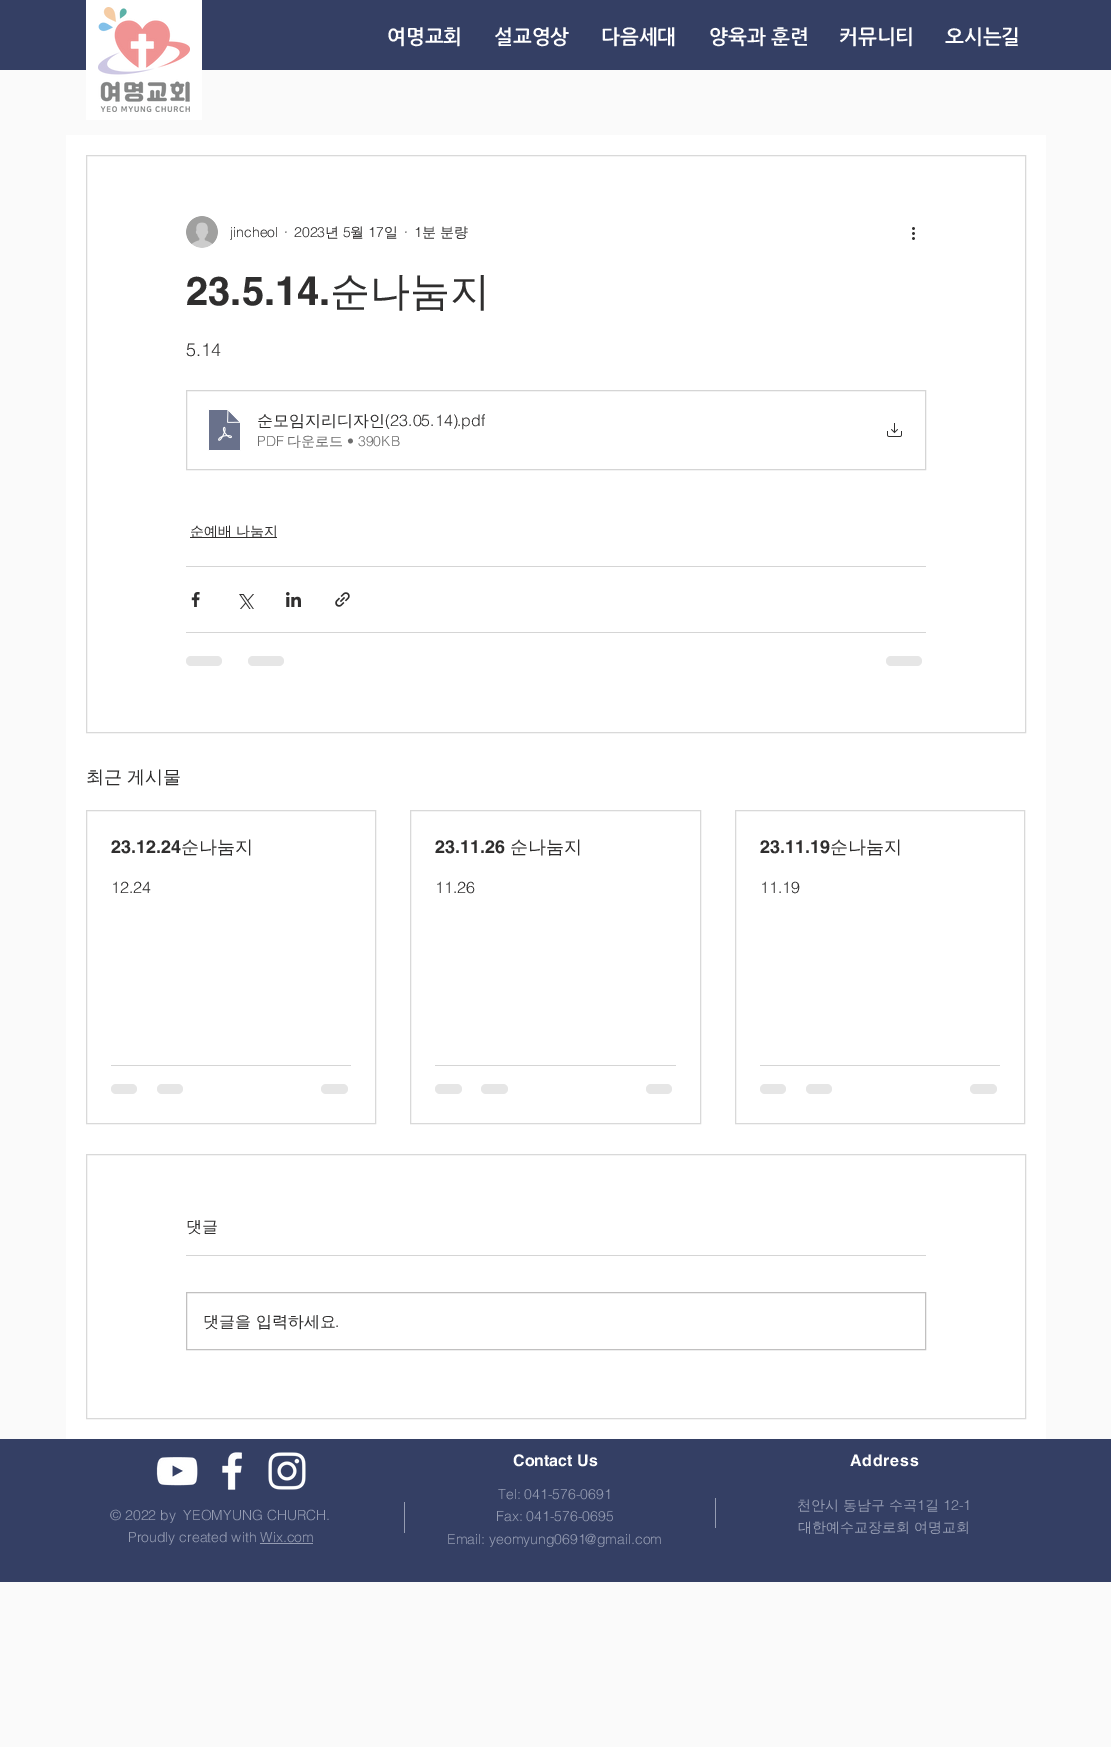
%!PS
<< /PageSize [1111 1747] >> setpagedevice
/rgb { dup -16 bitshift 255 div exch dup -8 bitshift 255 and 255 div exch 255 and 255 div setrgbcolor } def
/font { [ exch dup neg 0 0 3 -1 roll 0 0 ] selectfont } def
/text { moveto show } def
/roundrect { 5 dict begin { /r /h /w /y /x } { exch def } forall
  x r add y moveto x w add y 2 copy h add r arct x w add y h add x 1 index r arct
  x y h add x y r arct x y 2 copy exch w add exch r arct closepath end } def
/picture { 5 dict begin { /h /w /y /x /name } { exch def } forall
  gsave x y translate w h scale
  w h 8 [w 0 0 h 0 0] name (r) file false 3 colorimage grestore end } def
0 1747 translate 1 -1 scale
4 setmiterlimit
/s1 { /NanumGothic-Bold 20 font 16#FFFFFF rgb } def
/s2 { /helvetica-Light 14 font 16#2F2E2E rgb } def
/s3 { /WenQuanYiZenHei-Medium 14 font 16#2F2E2E rgb } def
/s4 { /helvetica-Bold 40 font 16#2F2E2E rgb } def
/s5 { /WenQuanYiZenHei-Medium 40 font 16#2F2E2E rgb } def
/s6 { /helvetica-Light 18 font 16#2F2E2E rgb } def
/s7 { /WenQuanYiZenHei-Medium 16 font 16#2F2E2E rgb } def
/s8 { /helvetica-Light 16 font 16#2F2E2E rgb } def
/s9 { /helvetica-Light 14 font 16#6D6D6D rgb } def
/s10 { /WenQuanYiZenHei-Medium 14 font 16#6D6D6D rgb } def
/s11 { /WenQuanYiZenHei-Medium 18 font 16#2F2E2E rgb } def
/s12 { /helvetica-Bold 18 font 16#2F2E2E rgb } def
/s13 { /helvetica-Bold 16 font 16#FFFFFF rgb } def
/s14 { /helvetica-Light 14 font 16#959CB2 rgb } def
/s15 { /WenQuanYiZenHei-Medium 14 font 16#959CB2 rgb } def
16#FAFAFA rgb
0 0 1111 1747 rectfill
16#343F64 rgb
0 0 1111 70 rectfill
16#FFFFFF rgb
86 0 116 120 rectfill
(pic1.raw) 98 7 92 105 picture
s1
(여명교회) 387 43 text
(설교영상) 494 43 text
(다음세대) 601 43 text
(양육과 훈련) 709 43 text
(커뮤니티) 839 43 text
(오시는길) 945 43 text
66 135 980 1304 rectfill
16#D9D9D9 rgb
86.5 155.5 939 577 rectstroke
(pic2.raw) 186 216 32 32 picture
s2
(jincheol) 230 237 text
(·) 284 237 text
(2023) 294 237 text
s3
(년) 325 237 text
s2
(5) 343 237 text
s3
(월) 350 237 text
s2
(17) 368 237 text
s3
(일) 384 237 text
s2
(·) 404 237 text
(1) 414 237 text
s3
(분 분량) 422 237 text
(pic3.raw) 912 227 3 13 picture
s4
(23.5.14.) 186 305 text
s5
(순나눔지) 330 305 text
s6
(5.14) 186 356 text
16#D5D5D5 rgb
186.5 390.5 739 79 rectstroke
(pic4.raw) 208 409 33 42 picture
s7
(순모임지리디자인) 257 426 text
s8
(\(23.05.14\)) 385 426 text
(.pdf) 457 426 text
s9
(PDF) 257 446 text
s10
(다운로드) 287 446 text
s9
(• 390KB) 347 446 text
(pic5.raw) 887 423 15 14 picture
16#2F2E2E rgb
190 537 87 1 rectfill
s3
(순예배 나눔지) 190 536 text
16#D5D5D5 rgb
186 566 740 1 rectfill
(pic6.raw) 191 592 9 15 picture
(pic7.raw) 239 594 15 15 picture
(pic8.raw) 286 592 15 15 picture
(pic9.raw) 335 592 15 15 picture
186 632 740 1 rectfill
16#E6E6E6 rgb
186 656 36 10 5 roundrect fill
248 656 36 10 5 roundrect fill
886 656 36 10 5 roundrect fill
s11
(최근 게시물) 86 783 text
16#D9D9D9 rgb
86.5 810.5 289 313 rectstroke
s12
(23.12.24) 111 853 text
s11
(순나눔지) 181 853 text
s8
(12.24) 111 893 text
16#D5D5D5 rgb
111 1065 240 1 rectfill
16#E6E6E6 rgb
111 1084 26 10 5 roundrect fill
157 1084 26 10 5 roundrect fill
321 1084 27 10 5 roundrect fill
16#D9D9D9 rgb
410.5 810.5 290 313 rectstroke
s12
(23.11.26) 435 853 text
s11
(순나눔지) 510 853 text
s8
(11.26) 435 893 text
16#D5D5D5 rgb
435 1065 241 1 rectfill
16#E6E6E6 rgb
435 1084 27 10 5 roundrect fill
481 1084 27 10 5 roundrect fill
646 1084 26 10 5 roundrect fill
16#D9D9D9 rgb
735.5 810.5 289 313 rectstroke
s12
(23.11.19) 760 853 text
s11
(순나눔지) 830 853 text
s8
(11.19) 760 893 text
16#D5D5D5 rgb
760 1065 240 1 rectfill
16#E6E6E6 rgb
760 1084 26 10 5 roundrect fill
806 1084 26 10 5 roundrect fill
970 1084 27 10 5 roundrect fill
16#D9D9D9 rgb
86.5 1154.5 939 264 rectstroke
s7
(댓글) 186 1232 text
16#D5D5D5 rgb
186 1255 740 1 rectfill
16#C1C0C0 rgb
186.5 1292.5 739 57 rectstroke
s7
(댓글을 입력하세요) 203 1327 text
s8
(.) 335 1327 text
16#343F64 rgb
0 1439 1111 143 rectfill
(pic10.raw) 156 1457 42 29 picture
(pic11.raw) 222 1452 20 38 picture
(pic12.raw) 268 1452 38 38 picture
s13
(Contact Us) 513 1466 text
850 1466 moveto 0.75 0 (Address) ashow
s14
(© 2022 by  YEOMYUNG CHURCH.) 110 1520 text
(Proudly created with Wix.com) 128 1542 text
260 1543 53 1 rectfill
404 1502 1 31 rectfill
(Tel: 041-576-0691) 498 1499 text
(Fax: 041-576-0695) 496 1521 text
(Email: yeomyung0691@gmail.com) 447 1544 text
715 1498 1 30 rectfill
s15
(천안시 동남구 수곡) 797 1510 text
s14
(1) 917 1510 text
s15
(길) 925 1510 text
s14
(12-1) 943 1510 text
s15
(대한예수교장로회 여명교회) 798 1532 text
showpage
